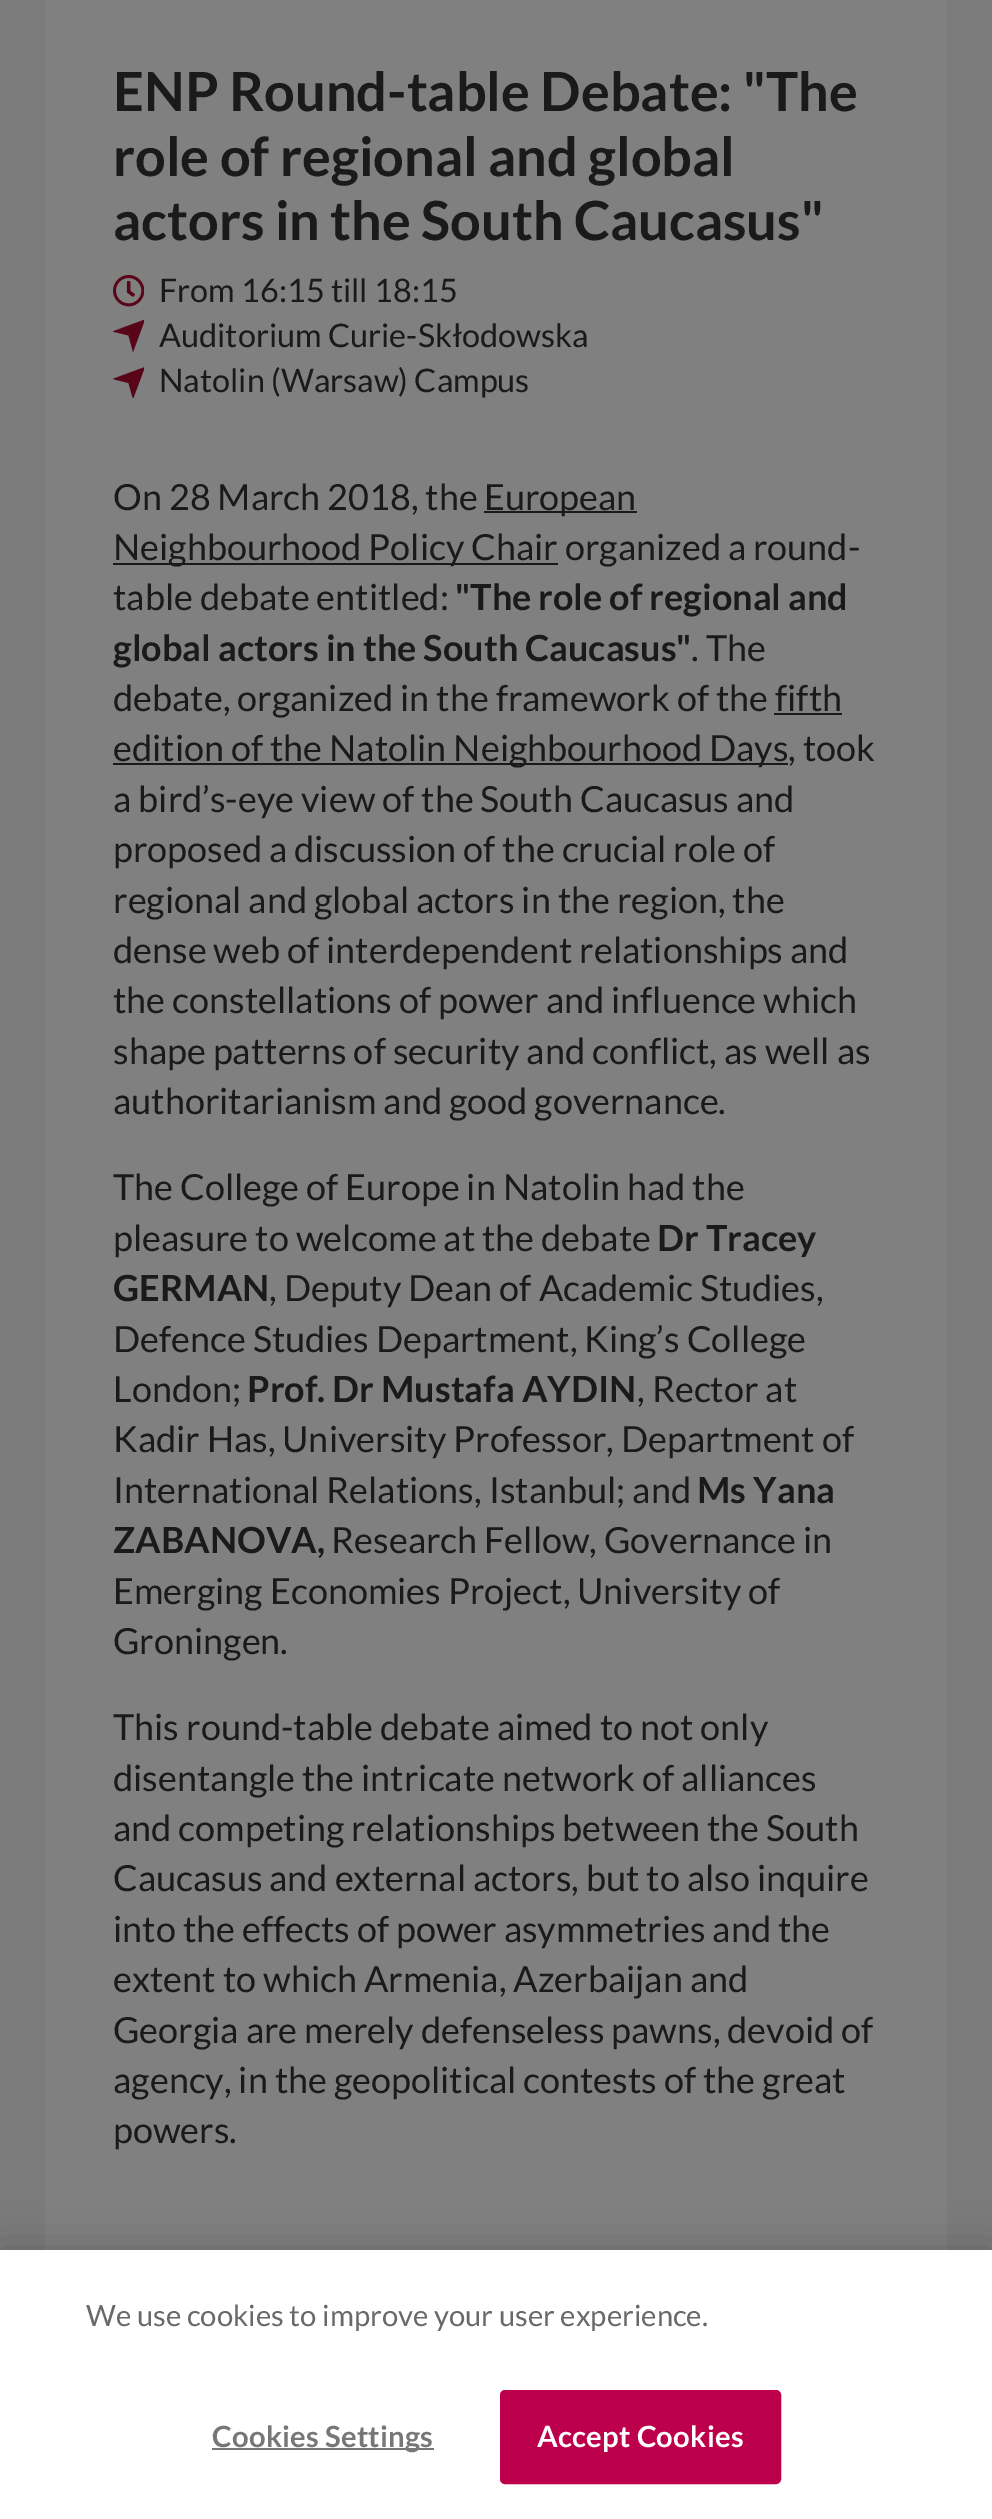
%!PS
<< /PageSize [992 2519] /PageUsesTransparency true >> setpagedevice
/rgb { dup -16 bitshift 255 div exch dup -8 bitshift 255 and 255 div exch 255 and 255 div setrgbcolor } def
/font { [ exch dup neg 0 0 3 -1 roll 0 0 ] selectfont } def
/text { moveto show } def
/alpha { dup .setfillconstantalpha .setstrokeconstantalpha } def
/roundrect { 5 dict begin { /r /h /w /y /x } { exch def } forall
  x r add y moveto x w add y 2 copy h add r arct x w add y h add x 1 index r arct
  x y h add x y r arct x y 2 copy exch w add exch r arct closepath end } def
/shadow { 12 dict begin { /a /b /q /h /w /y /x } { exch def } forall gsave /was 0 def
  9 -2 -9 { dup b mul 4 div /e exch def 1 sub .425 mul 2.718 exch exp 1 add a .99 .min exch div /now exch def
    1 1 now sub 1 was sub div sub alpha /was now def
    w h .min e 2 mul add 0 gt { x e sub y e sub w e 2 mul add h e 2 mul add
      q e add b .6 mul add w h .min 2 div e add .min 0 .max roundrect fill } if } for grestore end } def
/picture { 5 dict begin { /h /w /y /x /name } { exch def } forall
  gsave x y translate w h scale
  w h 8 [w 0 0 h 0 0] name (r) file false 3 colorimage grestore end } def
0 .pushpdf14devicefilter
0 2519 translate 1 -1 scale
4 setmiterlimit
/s1 { /Lato-Bold 54 font 16#1A1A1A rgb } def
/s2 { /Lato-Regular 32.4 font 16#1A1A1A rgb } def
/s3 { /Lato-Regular 36 font 16#1A1A1A rgb } def
/s4 { /Lato-Bold 36 font 16#1A1A1A rgb } def
/s5 { /Lato-Regular 29.25 font 16#696969 rgb } def
16#7B7B7B rgb
0 0 992 2519 rectfill
16#808080 rgb
45 0 902 2250 rectfill
s1
(ENP Round-table Debate: "The) 113 111 text
(role of regional and global) 113 176 text
(actors in the South Caucasus") 113 240 text
(pic1.raw) 113 275 31 32 picture
s2
(From 16:15 till 18:15) 159 302 text
gsave
113 320 31 33 rectclip
16#590519 rgb
112.5 331.5 moveto 145 319.5 lineto 133 352 lineto 128.5 335.5 lineto closepath fill
grestore
(Auditorium Curie-Skłodowska) 159 347 text
gsave
113 367 31 31 rectclip
16#590519 rgb
112.5 379 moveto 145 367 lineto 133 399 lineto 128.5 383 lineto closepath fill
grestore
(Natolin \(Warsaw\) Campus) 159 392 text
s3
(On 28 March 2018, the) 113 510 text
484 511 153 2 rectfill
(European) 484 510 text
113 563 445 2 rectfill
(Neighbourhood Policy Chair organized a round-) 113 560 text
(table debate entitled:) 113 610 text
s4
("The role of regional and) 455 610 text
(global actors in the South Caucasus") 113 661 text
s3
(. The) 691 661 text
(debate, organized in the framework of the fifth) 113 711 text
113 763 675 2 rectfill
(edition of the Natolin Neighbourhood Days, took) 113 761 text
774 713 68 2 rectfill
(a bird’s-eye view of the South Caucasus and) 113 812 text
(proposed a discussion of the crucial role of) 113 862 text
(regional and global actors in the region, the) 113 913 text
(dense web of interdependent relationships and) 113 963 text
(the constellations of power and influence which) 113 1013 text
(shape patterns of security and conflict, as well as) 113 1064 text
(authoritarianism and good governance.) 113 1114 text
(The College of Europe in Natolin had the) 113 1200 text
(pleasure to welcome at the debate) 113 1251 text
s4
(Dr Tracey) 657 1251 text
(GERMAN) 113 1301 text
s3
(, Deputy Dean of Academic Studies,) 269 1301 text
(Defence Studies Department, King’s College) 113 1352 text
(London;) 113 1402 text
s4
(Prof. Dr Mustafa AYDIN) 247 1402 text
s3
(, Rector at) 637 1402 text
(Kadir Has, University Professor, Department of) 113 1452 text
(International Relations, Istanbul; and) 113 1503 text
s4
(Ms Yana) 697 1503 text
(ZABANOVA,) 113 1553 text
s3
(Research Fellow, Governance in) 331 1553 text
(Emerging Economies Project, University of) 113 1604 text
(Groningen.) 113 1654 text
(This round-table debate aimed to not only) 113 1740 text
(disentangle the intricate network of alliances) 113 1791 text
(and competing relationships between the South) 113 1841 text
(Caucasus and external actors, but to also inquire) 113 1891 text
(into the effects of power asymmetries and the) 113 1942 text
(extent to which Armenia, Azerbaijan and) 113 1992 text
(Georgia are merely defenseless pawns, devoid of) 113 2043 text
(agency, in the geopolitical contests of the great) 113 2093 text
(powers.) 113 2143 text
16#000000 rgb
0 2250 992 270 0 20 0.2 shadow
16#FFFFFF rgb
0 2250 992 269 rectfill
s5
(We use cookies to improve your user experience.) 86 2326 text
16#777777 rgb
212 2448 222 2 rectfill
/Lato-Bold 29.25 font
212 2447 moveto 0.25 0 (Cookies Settings) ashow
16#BD004B rgb
501 2391 279 92 4 roundrect gsave fill grestore
2 setlinewidth
stroke
16#FFFFFF rgb
537 2447 moveto 0.25 0 (Accept Cookies) ashow
.poppdf14devicefilter showpage
